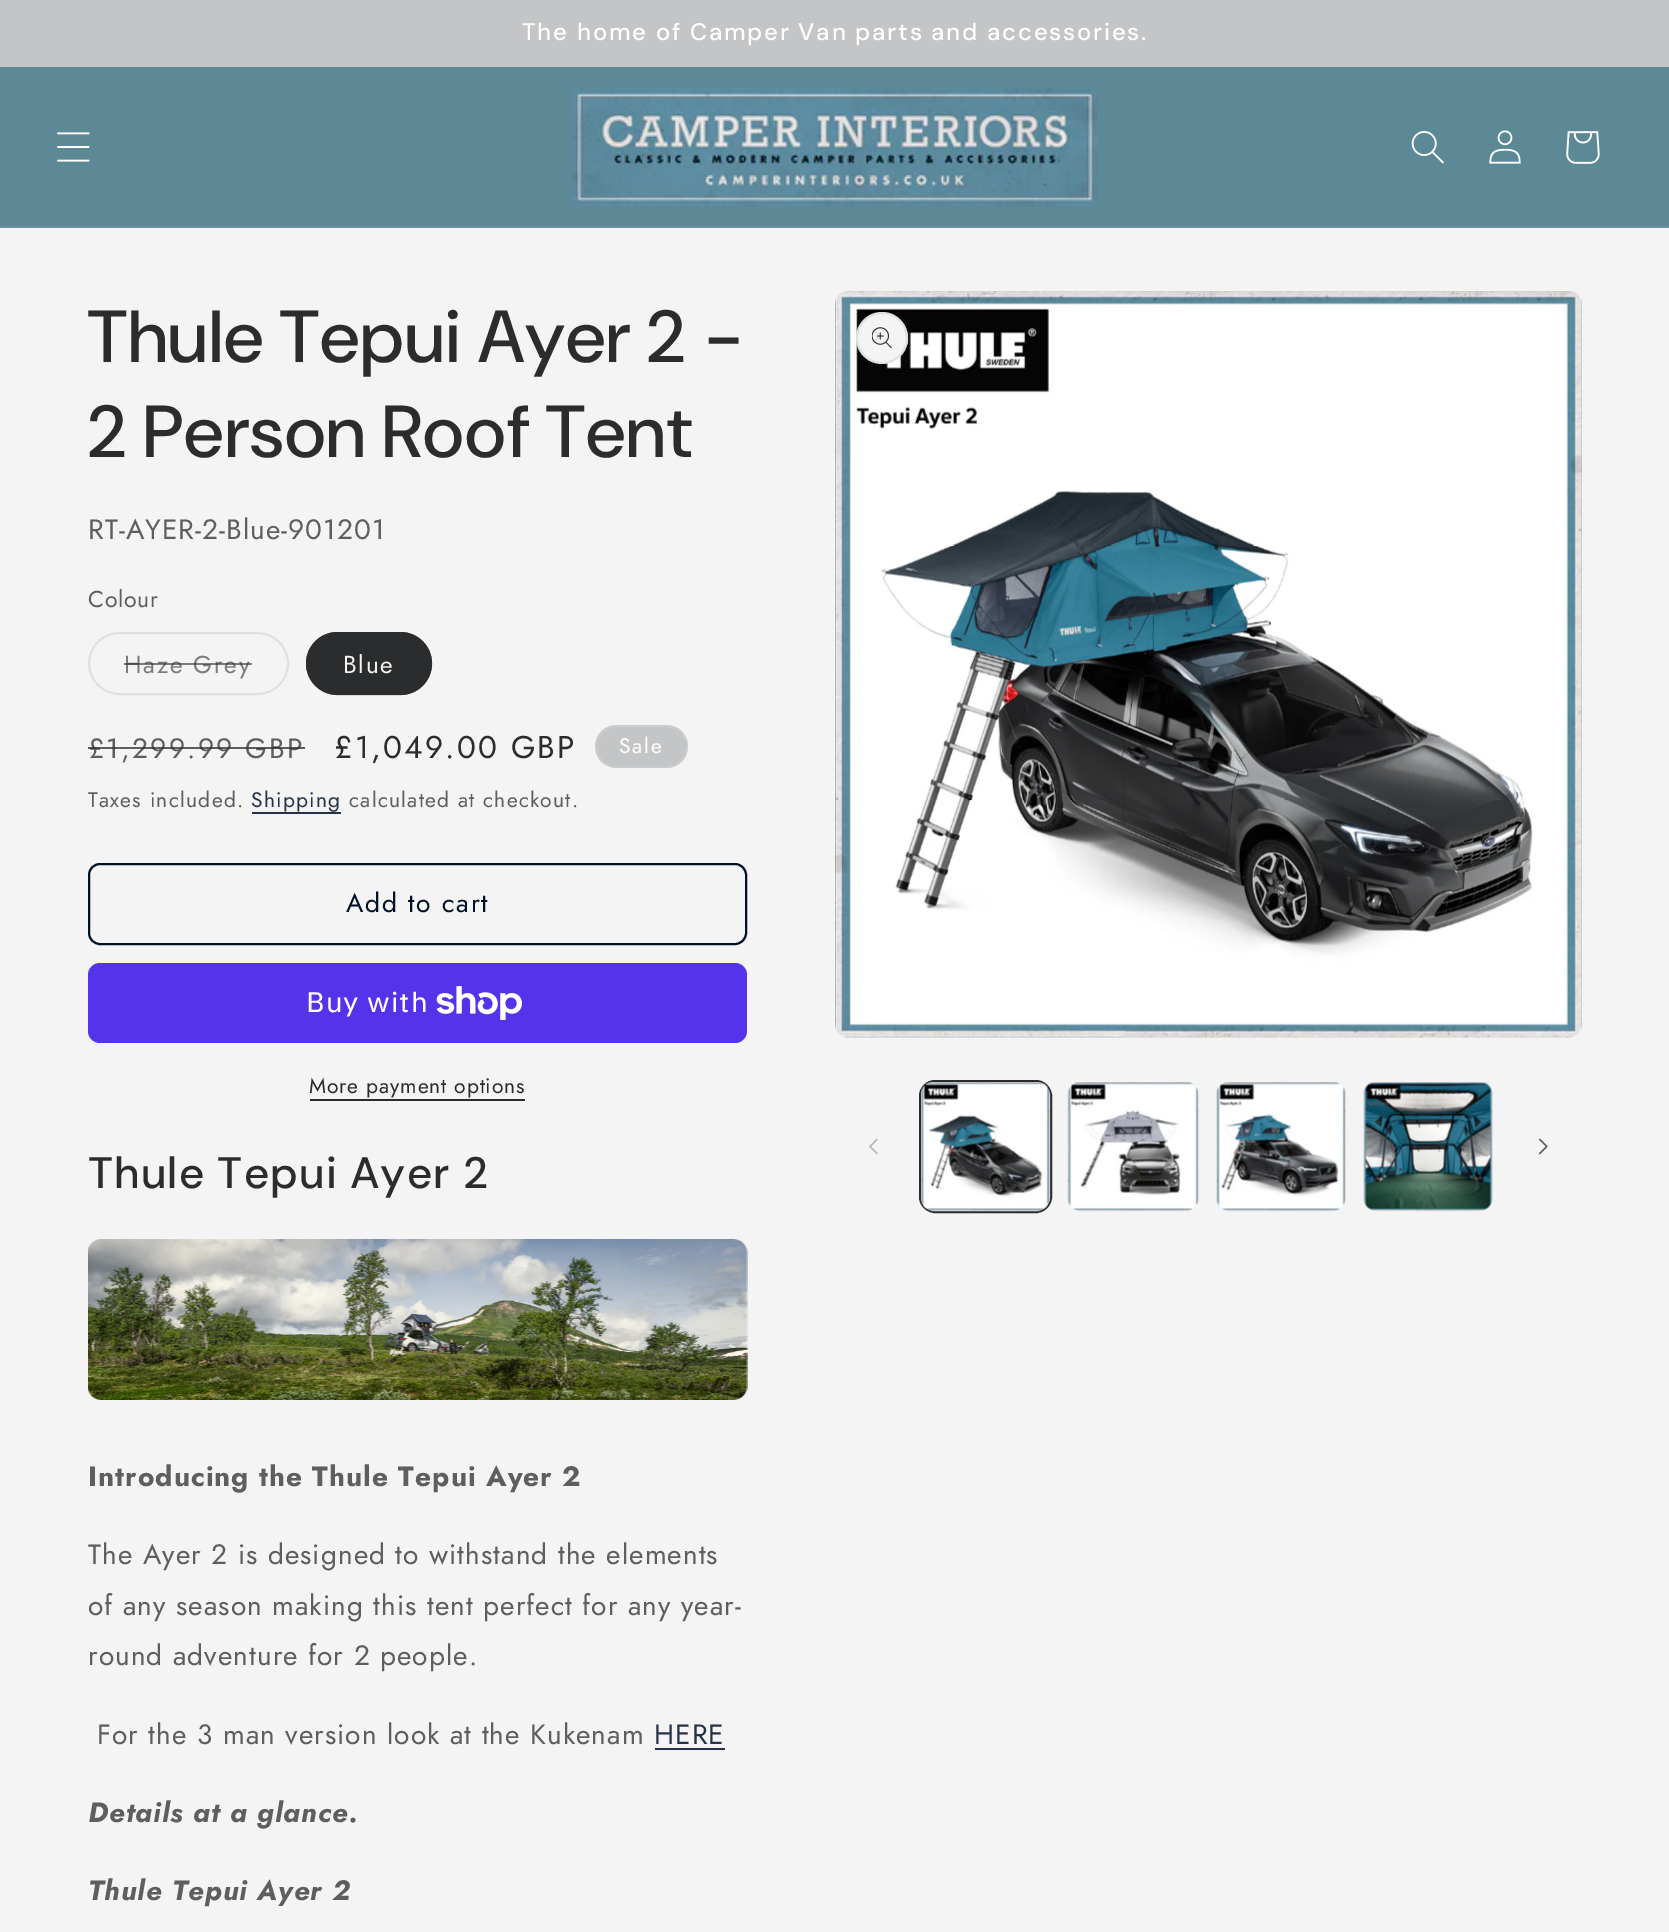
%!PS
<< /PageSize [1669 1932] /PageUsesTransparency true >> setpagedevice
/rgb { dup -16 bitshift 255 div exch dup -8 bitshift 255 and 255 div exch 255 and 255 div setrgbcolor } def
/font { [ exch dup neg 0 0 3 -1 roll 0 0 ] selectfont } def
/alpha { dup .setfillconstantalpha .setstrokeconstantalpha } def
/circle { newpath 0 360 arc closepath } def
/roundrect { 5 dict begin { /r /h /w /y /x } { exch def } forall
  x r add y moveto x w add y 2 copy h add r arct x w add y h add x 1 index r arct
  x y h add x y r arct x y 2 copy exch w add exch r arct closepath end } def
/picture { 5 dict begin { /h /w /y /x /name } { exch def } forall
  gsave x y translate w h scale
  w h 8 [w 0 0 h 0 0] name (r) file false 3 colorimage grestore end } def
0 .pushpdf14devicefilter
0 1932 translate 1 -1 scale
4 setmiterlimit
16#F4F4F4 rgb
0 0 1669 1932 rectfill
16#C4C5C6 rgb
0 0 1669 67 rectfill
/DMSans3-Medium 23.9 font
16#FFFFFF rgb
522 40 moveto 1.75 0 (The home of Camper Van parts and accessories.) ashow
16#5D8896 rgb
0 67 1669 159 rectfill
16#6A929E rgb
0 226 1669 2 rectfill
(pic1.raw) 57 132 33 30 picture
(pic2.raw) 572 87 526 120 picture
(pic3.raw) 1411 131 33 33 picture
(pic4.raw) 1489 130 32 34 picture
(pic5.raw) 1566 131 34 33 picture
/DMSans-Medium 73.5 font
16#2B2C2D rgb
88 362 moveto 1.1 0 (Thule Tepui Ayer 2 -) ashow
88 457 moveto 1.1 0 (2 Person Roof Tent) ashow
/Jost-Regular 28 font
16#5D5E5F rgb
88 539 moveto 1.05 0 (RT-AYER-2-Blue-901201) ashow
/Jost-Regular 23 font
88 607 moveto 0.75 0 (Colour) ashow
16#E0E0E0 rgb
2 setlinewidth
89 633 199 61 30.5 roundrect stroke
/Jost-Regular 24.5 font
16#7B7C7D rgb
124 673 moveto 1.75 0 (Haze Grey) ashow
0.6 alpha
16#2B2C2D rgb
124 663 128 2 rectfill
1 alpha
306 632 126 63 31.5 roundrect fill
0.55 alpha
307 633 124 61 30.5 roundrect stroke
1 alpha
16#F4F4F4 rgb
343 673 moveto 1.75 0 (Blue) ashow
/Jost-Regular 28 font
16#5D5E5F rgb
88 758 moveto 2.25 0 (£1,299.99 GBP) ashow
0.75 alpha
16#2B2C2D rgb
88 747 217 2 rectfill
/Jost-Regular 31.5 font
1 alpha
334 758 moveto 2.25 0 (£1,049.00 GBP) ashow
16#C4C5C6 rgb
595 725 93 43 21.5 roundrect fill
0.1 alpha
16#FFFFFF rgb
596 726 91 41 20.5 roundrect stroke
/Jost-Regular 21 font
1 alpha
619 753 moveto 1.75 0 (Sale) ashow
16#5D5E5F rgb
88 807 moveto 1.25 0 (Taxes included.) ashow
16#253347 rgb
251 807 moveto 1.25 0 (Shipping) ashow
252 812 89 2 rectfill
16#5D5E5F rgb
349 807 moveto 1.25 0 (calculated at checkout.) ashow
16#001128 rgb
89 864 657 80 11 roundrect stroke
/Jost-Regular 26.25 font
346 912 moveto 1.75 0 (Add to cart) ashow
16#5433EB rgb
88 963 659 80 12 roundrect fill
/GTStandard-Regular 28 font
16#FFFFFF rgb
306 1012 moveto 1.05 0 (Buy with) ashow
(pic6.raw) 436 986 86 34 picture
/Jost-Regular 21 font
16#2B2C2D rgb
309 1093 moveto 0.9 0 (More payment options) ashow
310 1099 215 2 rectfill
/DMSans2-Medium 44 font
88 1188 moveto 1.1 0 (Thule Tepui Ayer 2) ashow
(pic7.raw) 88 1239 660 161 picture
/Jost-Bold 28 font
16#5D5E5F rgb
88 1486 moveto 1.05 0 (Introducing the Thule Tepui Ayer 2) ashow
/Jost-Regular 28 font
88 1564 moveto 1.05 0 (The Ayer 2 is designed to withstand the elements) ashow
88 1615 moveto 1.05 0 (of any season making this tent perfect for any year-) ashow
88 1665 moveto 1.05 0 (round adventure for 2 people.) ashow
97 1744 moveto 1.05 0 (For the 3 man version look at the Kukenam) ashow
16#253347 rgb
654 1744 moveto 1.05 0 (HERE) ashow
655 1748 70 2 rectfill
/Jost-BoldItalic 28 font
16#5D5E5F rgb
88 1822 moveto 1.05 0 (Details at a glance.) ashow
88 1900 moveto 1.05 0 (Thule Tepui Ayer 2) ashow
(pic8.raw) 835 291 747 747 picture
16#F4F4F4 rgb
882 338 26 circle fill
0.1 alpha
16#2B2C2D rgb
882 338 25 circle stroke
1 alpha
(pic9.raw) 872 327 20 22 picture
(pic10.raw) 869 1138 9 17 picture
920 1081 131 131 15 roundrect stroke
(pic11.raw) 921 1082 130 130 picture
(pic12.raw) 1067 1082 132 130 picture
(pic13.raw) 1216 1082 130 130 picture
(pic14.raw) 1363 1082 130 130 picture
(pic15.raw) 1539 1138 9 17 picture
.poppdf14devicefilter showpage
